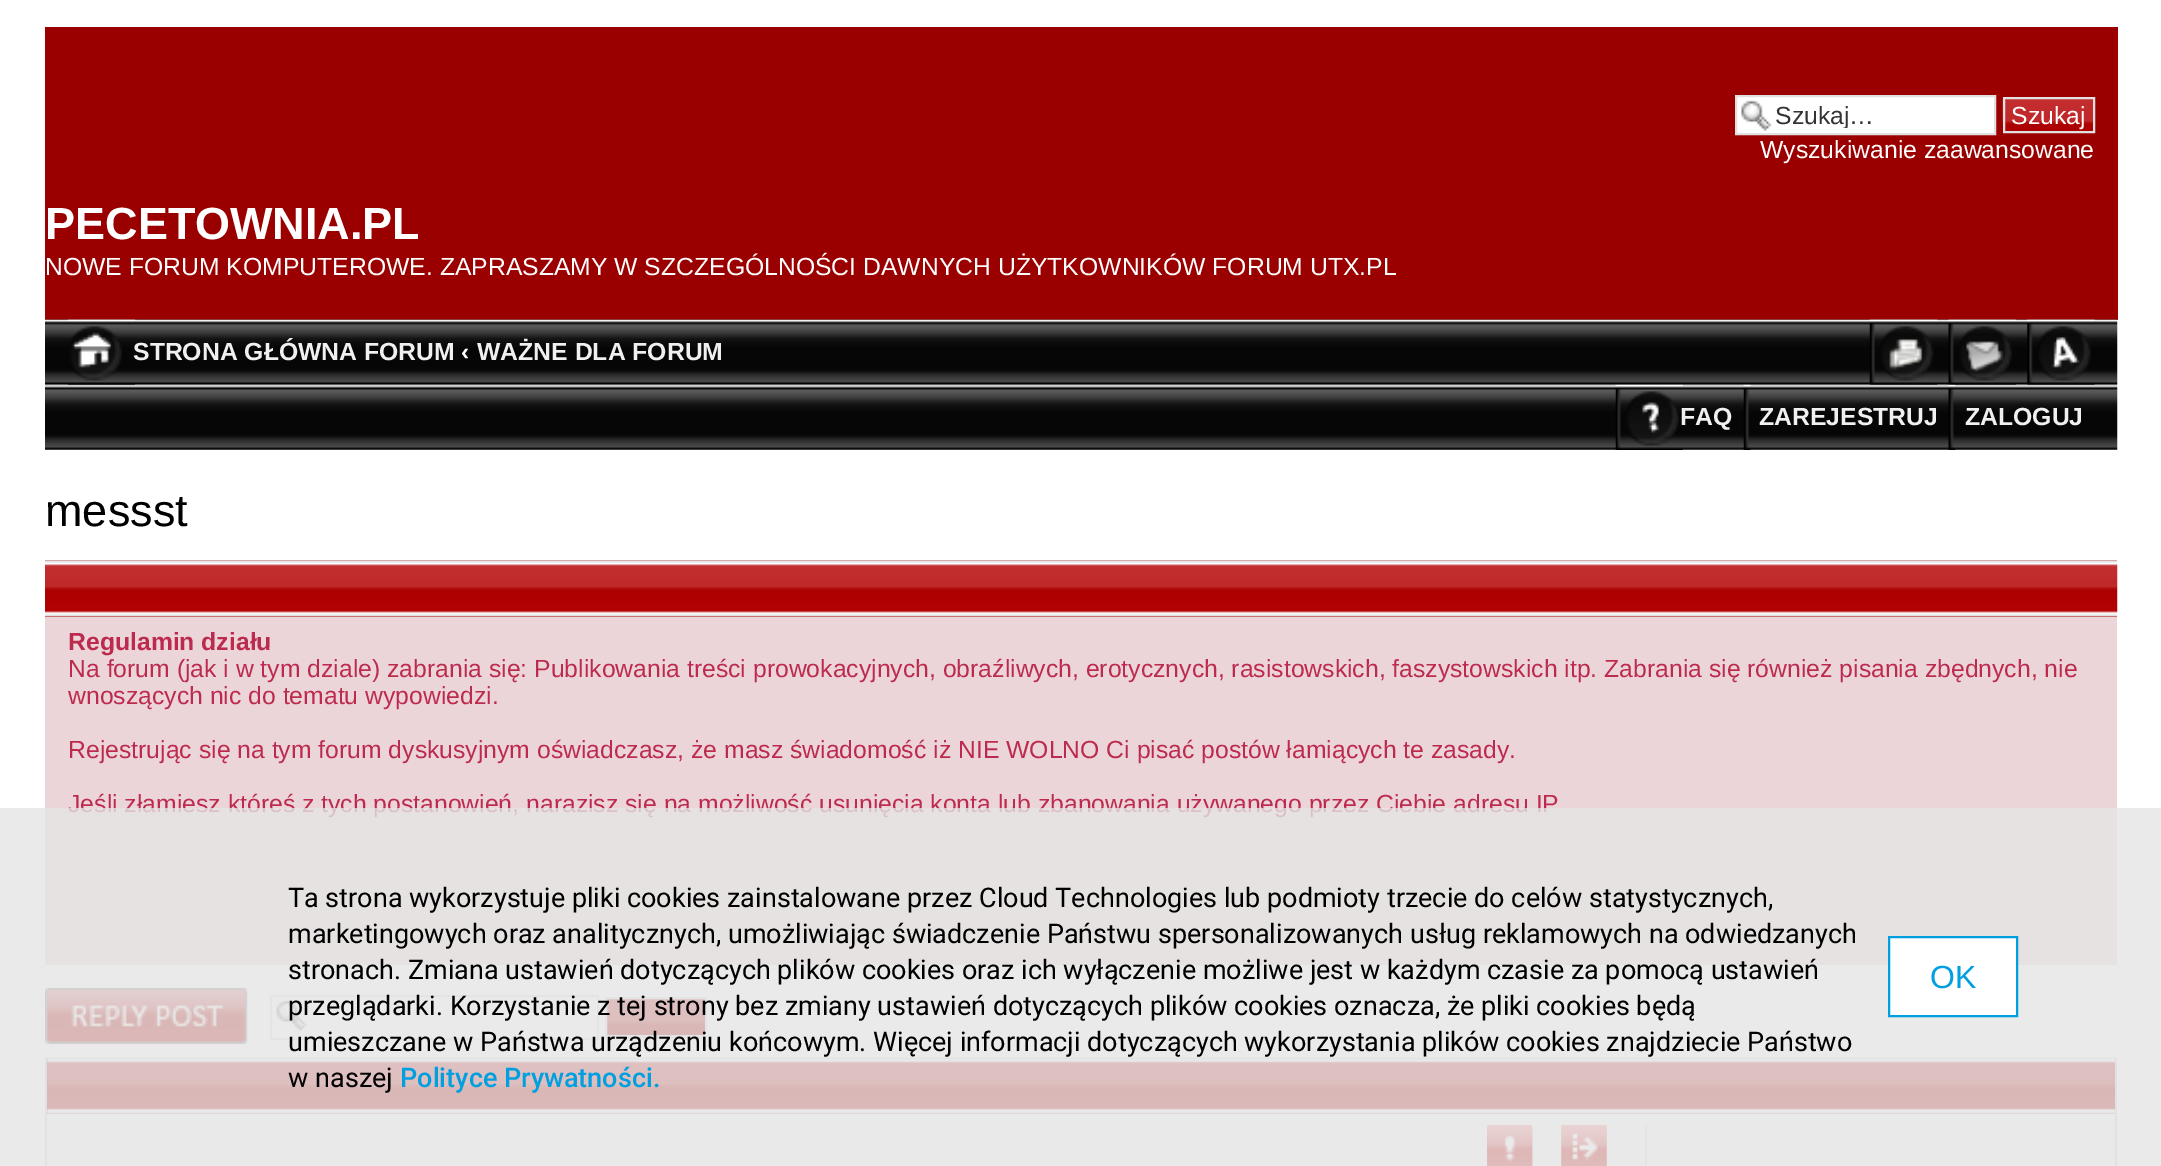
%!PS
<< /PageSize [2161 1166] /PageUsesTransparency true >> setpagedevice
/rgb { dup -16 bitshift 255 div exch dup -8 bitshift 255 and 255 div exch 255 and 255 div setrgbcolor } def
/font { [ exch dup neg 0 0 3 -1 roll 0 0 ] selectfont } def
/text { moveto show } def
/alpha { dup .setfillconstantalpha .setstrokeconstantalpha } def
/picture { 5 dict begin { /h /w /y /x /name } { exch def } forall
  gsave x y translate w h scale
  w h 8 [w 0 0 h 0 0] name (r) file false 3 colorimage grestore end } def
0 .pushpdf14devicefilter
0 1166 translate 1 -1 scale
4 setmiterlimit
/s1 { /LiberationSans-Regular 24.75 font 16#333333 rgb } def
/s2 { /LiberationSans-Regular 24.75 font 16#FFFFFF rgb } def
/s3 { /LiberationSans-Bold 45 font 16#FFFFFF rgb } def
/s4 { /LiberationSans-Bold 24.75 font 16#F0F0F0 rgb } def
/s5 { /LiberationSans-Bold 24.75 font 16#FFFFFF rgb } def
/s6 { /LiberationSans-Regular 45 font 16#000000 rgb } def
/s7 { /LiberationSans-Bold 24.75 font 16#BC2A4D rgb } def
/s8 { /LiberationSans-Regular 24.75 font 16#BC2A4D rgb } def
/s9 { /Roboto-Regular 27 font 16#000000 rgb } def
/s10 { /Roboto-Medium 27 font 16#009FDF rgb } def
/s11 { /LiberationSans-Regular 32 font 16#009FDF rgb } def
16#FFFFFF rgb
0 0 2161 1166 rectfill
16#9A0000 rgb
45 27 2073 293 rectfill
16#FFFFFF rgb
1737 97 257 36 rectfill
(pic1.raw) 1741 100 31 31 picture
16#E1E1E1 rgb
2 setlinewidth
1736 96 259 38 rectstroke
gsave
1775 101 214 27 rectclip
s1
(Szukaj…) 1775 124 text
grestore
(pic2.raw) 2002 99 91 34 picture
2004 98 90 34 rectstroke
s2
(Szukaj) 2011 124 text
(Wyszukiwanie zaawansowane) 1760 158 text
s3
(PECETOWNIA.PL) 45 239 text
s2
(NOWE FORUM KOMPUTEROWE. ZAPRASZAMY W SZCZEGÓLNOŚCI DAWNYCH UŻYTKOWNIKÓW FORUM UTX.PL) 45 275 text
(pic3.raw) 45 319 2073 131 picture
(pic4.raw) 67 319 68 66 picture
s4
(STRONA GŁÓWNA FORUM) 133 360 text
s5
(‹) 461 360 text
s4
(WAŻNE DLA FORUM) 477 360 text
(pic5.raw) 1869 319 69 66 picture
(pic6.raw) 1948 319 68 66 picture
(pic7.raw) 2027 319 68 66 picture
(pic8.raw) 1615 384 68 66 picture
(FAQ) 1680 425 text
(pic9.raw) 1743 384 8 66 picture
(ZAREJESTRUJ) 1759 425 text
(pic10.raw) 1948 384 8 66 picture
(ZALOGUJ) 1965 425 text
s6
(messst) 45 526 text
16#ECD5D8 rgb
45 617 2072 348 rectfill
16#AC0000 rgb
45 560 2072 57 rectfill
(pic11.raw) 45 560 2073 57 picture
s7
(Regulamin działu) 68 650 text
s8
(Na forum \(jak i w tym dziale\) zabrania się: Publikowania treści prowokacyjnych, obraźliwych, erotycznych, rasistowskich, faszystowskich itp. Zabrania się również pisania zbędnych, nie) 68 677 text
(wnoszących nic do tematu wypowiedzi.) 68 704 text
(Rejestrując się na tym forum dyskusyjnym oświadczasz, że masz świadomość iż NIE WOLNO Ci pisać postów łamiących te zasady.) 68 758 text
(Jeśli złamiesz któreś z tych postanowień, narazisz się na możliwość usunięcia konta lub zbanowania używanego przez Ciebie adresu IP) 68 812 text
(pic12.raw) 45 987 203 57 picture
(pic13.raw) 276 1000 31 31 picture
16#E1E1E1 rgb
271 996 327 43 rectstroke
(pic14.raw) 605 999 102 39 picture
606 998 100 38 rectstroke
16#FAFAFA rgb
47 1114 2068 52 rectfill
16#D1D1D1 rgb
2115 1058 2 108 rectfill
45 1058 2 108 rectfill
16#AC0000 rgb
47 1058 2068 56 rectfill
(pic15.raw) 47 1057 2068 57 picture
(pic16.raw) 1487 1125 46 41 picture
(pic17.raw) 1487 1125 46 41 picture
(pic18.raw) 1561 1125 46 41 picture
(pic19.raw) 1561 1125 46 41 picture
16#E1E1E1 rgb
1645 1125 2 41 rectfill
0.8 alpha
16#E5E5E5 rgb
0 808 2161 358 rectfill
1 alpha
s9
(Ta strona wykorzystuje pliki cookies zainstalowane przez Cloud Technologies lub podmioty trzecie do celów statystycznych,) 288 907 text
(marketingowych oraz analitycznych, umożliwiając świadczenie Państwu spersonalizowanych usług reklamowych na odwiedzanych) 288 943 text
(stronach. Zmiana ustawień dotyczących plików cookies oraz ich wyłączenie możliwe jest w każdym czasie za pomocą ustawień) 288 979 text
(przeglądarki. Korzystanie z tej strony bez zmiany ustawień dotyczących plików cookies oznacza, że pliki cookies będą) 288 1015 text
(umieszczane w Państwa urządzeniu końcowym. Więcej informacji dotyczących wykorzystania plików cookies znajdziecie Państwo) 288 1051 text
(w naszej) 288 1087 text
s10
(Polityce Prywatności.) 400 1087 text
16#FFFFFF rgb
1889 937 moveto 2017 937 lineto 2017 1016 lineto 1889 1016 lineto closepath gsave fill grestore
16#009FDF rgb
stroke
s11
(OK) 1930 988 text
.poppdf14devicefilter showpage
